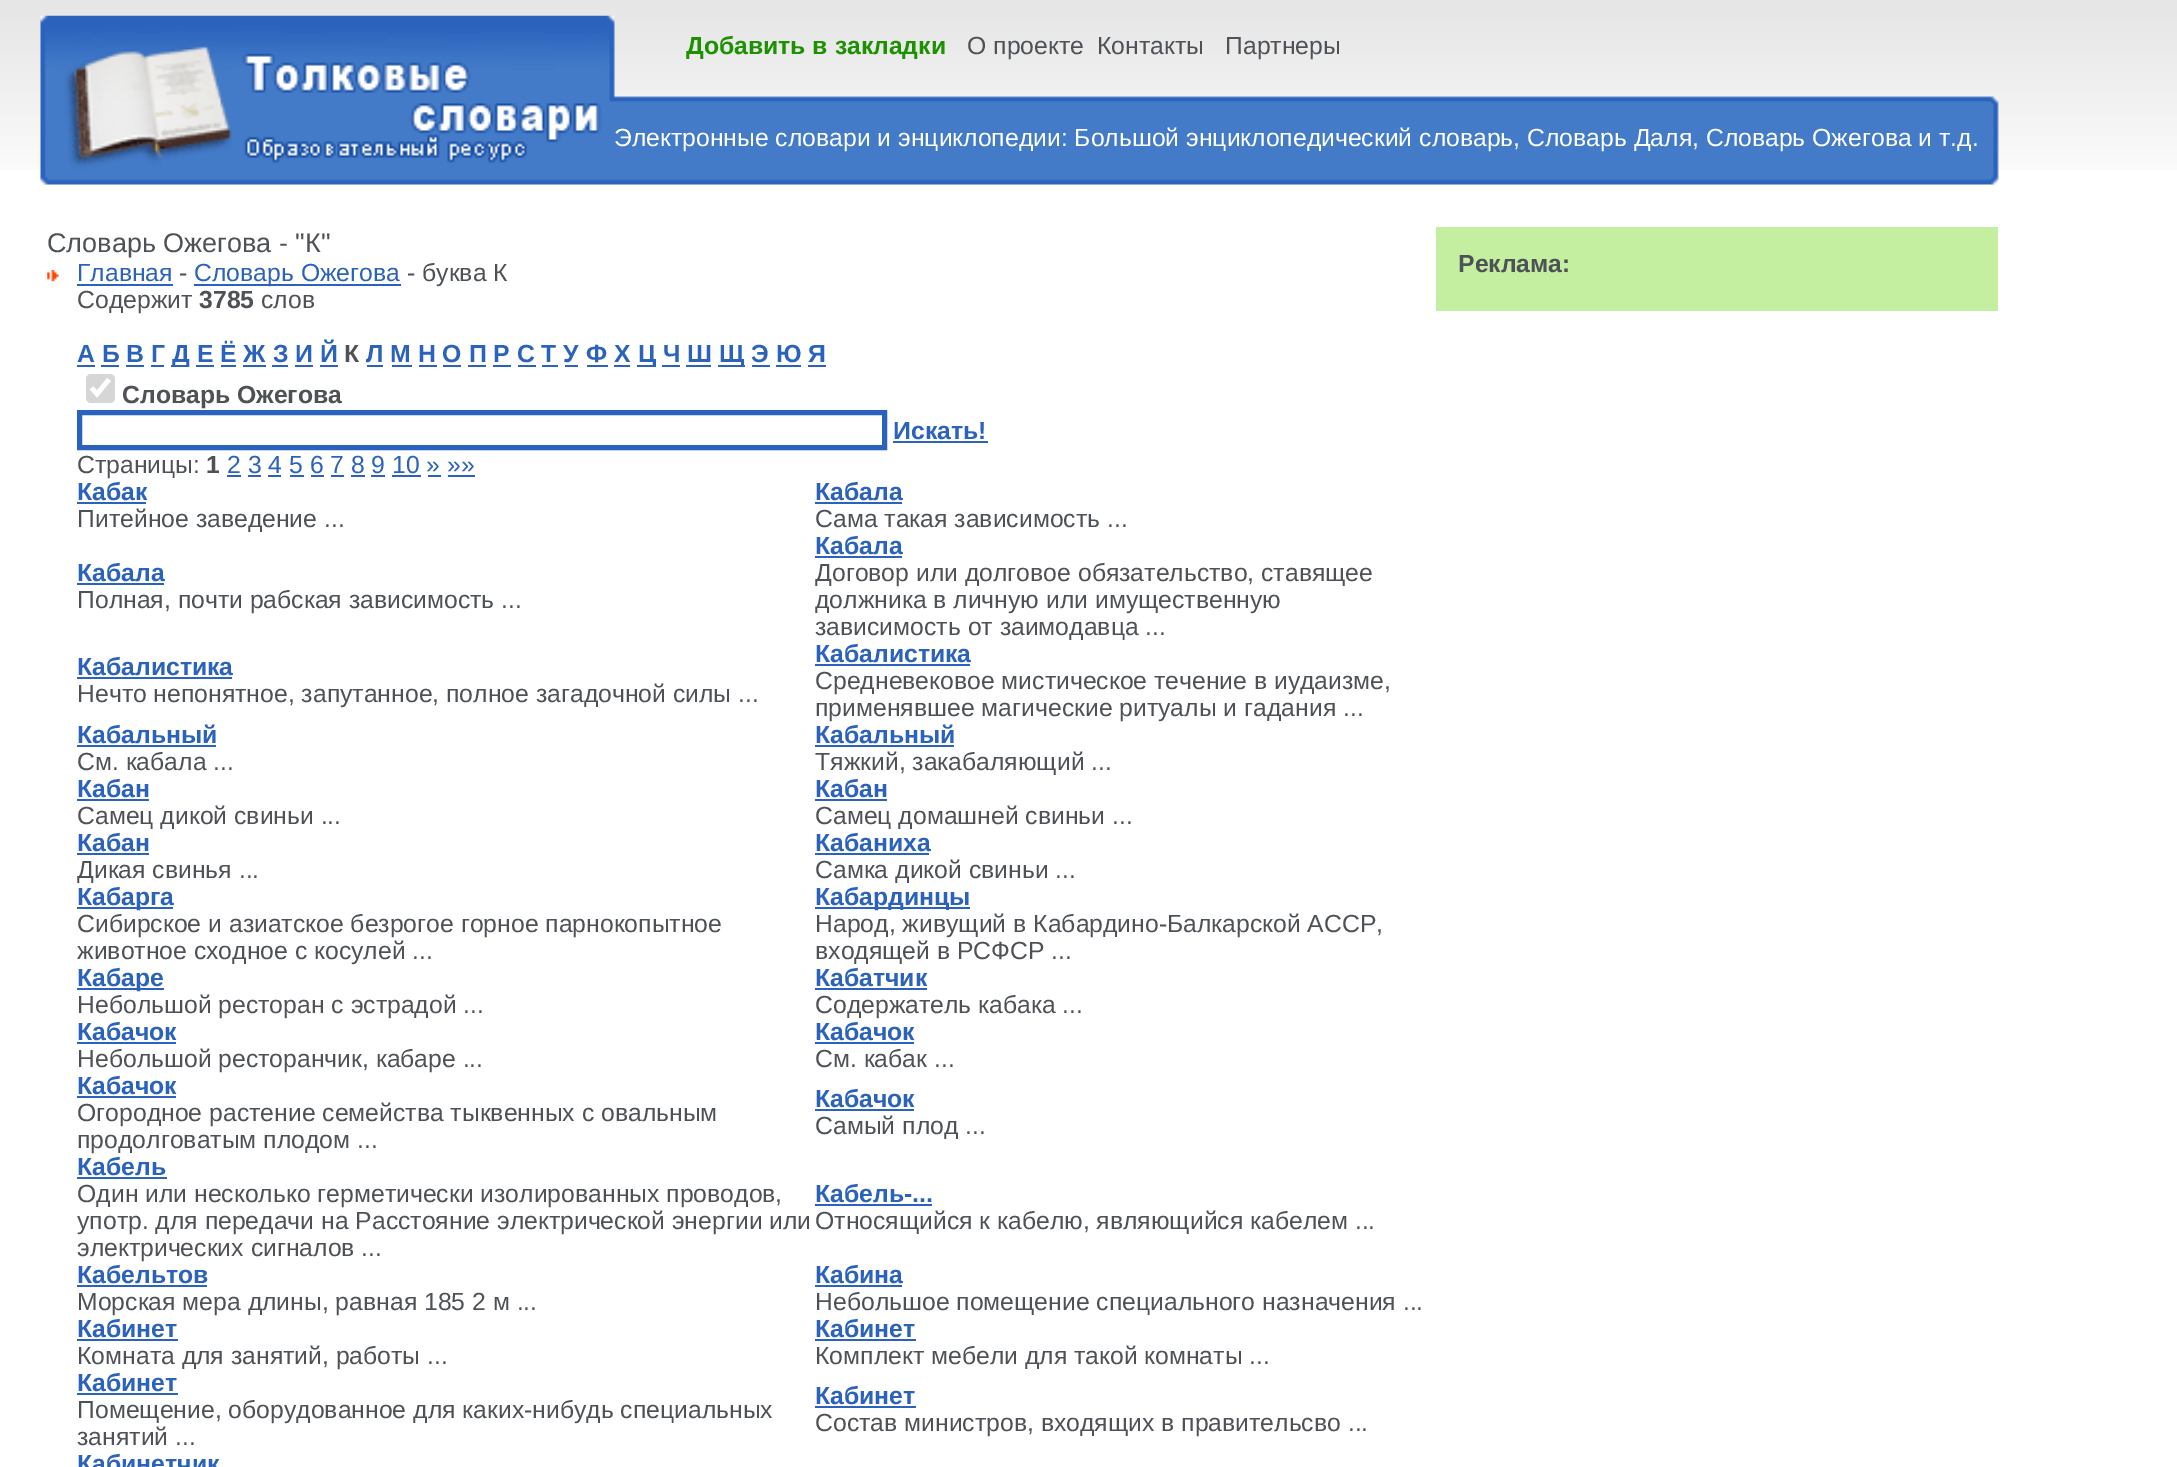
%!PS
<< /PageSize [2177 1467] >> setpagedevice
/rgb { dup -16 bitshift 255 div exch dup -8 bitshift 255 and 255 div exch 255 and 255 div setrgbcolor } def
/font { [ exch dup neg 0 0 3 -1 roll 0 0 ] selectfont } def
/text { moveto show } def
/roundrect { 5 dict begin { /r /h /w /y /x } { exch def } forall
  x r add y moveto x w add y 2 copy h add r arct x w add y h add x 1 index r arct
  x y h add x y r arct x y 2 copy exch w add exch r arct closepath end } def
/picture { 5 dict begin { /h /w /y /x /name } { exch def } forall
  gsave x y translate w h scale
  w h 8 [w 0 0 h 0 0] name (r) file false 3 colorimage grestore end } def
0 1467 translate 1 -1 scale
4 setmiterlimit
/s1 { /LiberationSans-Bold 24.75 font 16#1D9101 rgb } def
/s2 { /LiberationSans-Regular 24.75 font 16#4E5256 rgb } def
/s3 { /LiberationSans-Regular 24.75 font 16#FFFFFF rgb } def
/s4 { /LiberationSans-Regular 27 font 16#4E5256 rgb } def
/s5 { /LiberationSans-Regular 24.75 font 16#2A62BC rgb } def
/s6 { /LiberationSans-Bold 24.75 font 16#4E5256 rgb } def
/s7 { /LiberationSans-Bold 24.75 font 16#2A62BC rgb } def
16#FFFFFF rgb
0 0 2177 1467 rectfill
(pic1.raw) 0 0 2177 170 picture
(pic2.raw) 40 15 1959 170 picture
s1
(Добавить в закладки) 686 54 text
s2
(О проекте) 967 54 text
(Контакты) 1097 54 text
(Партнеры) 1225 54 text
s3
(Электронные словари и энциклопедии: Большой энциклопедический словарь, Словарь Даля, Словарь Ожегова и т.д.) 614 146 text
s4
(Словарь Ожегова - "К") 47 252 text
(pic3.raw) 47 270 12 12 picture
s5
(Главная) 77 281 text
77 284 96 2 rectfill
s2
(-) 179 281 text
16#2A62BC rgb
194 284 207 2 rectfill
(Словарь Ожегова) 194 281 text
s2
(- буква К) 407 281 text
(Содержит) 77 308 text
s6
(3785) 199 308 text
s2
(слов) 261 308 text
s7
(А Б В Г) 77 362 text
77 365 18 2 rectfill
171 365 18 2 rectfill
(Д Е Ё Ж З И Й) 172 362 text
s6
(К) 344 362 text
s7
(Л М Н О П Р С Т У Ф Х) 366 362 text
367 365 16 2 rectfill
637 365 18 2 rectfill
(Ц Ч Ш) 638 362 text
718 365 27 2 rectfill
(Щ Э Ю Я) 719 362 text
101 365 18 2 rectfill
126 365 18 2 rectfill
151 365 13 2 rectfill
196 365 18 2 rectfill
221 365 15 2 rectfill
243 365 23 2 rectfill
272 365 16 2 rectfill
295 365 18 2 rectfill
320 365 18 2 rectfill
392 365 20 2 rectfill
419 365 18 2 rectfill
443 365 18 2 rectfill
468 365 18 2 rectfill
493 365 18 2 rectfill
518 365 18 2 rectfill
542 365 16 2 rectfill
565 365 13 2 rectfill
587 365 21 2 rectfill
614 365 16 2 rectfill
662 365 18 2 rectfill
686 365 25 2 rectfill
752 365 18 2 rectfill
776 365 25 2 rectfill
808 365 18 2 rectfill
16#D6D6D6 rgb
86 374 29 29 5 roundrect fill
16#FFFFFF rgb
4.7 setlinewidth
91.5 388 moveto 97 394 lineto 109 379.5 lineto stroke
s6
(Словарь Ожегова) 122 403 text
16#2A62BC rgb
5 setlinewidth
79.5 412.5 805 35 rectstroke
(Искать!) 893 439 text
893 441 95 2 rectfill
s2
(Страницы:) 77 473 text
s6
(1) 206 473 text
s5
(2 3 4 5 6 7 8 9 10 » »») 227 473 text
227 475 14 2 rectfill
248 475 13 2 rectfill
268 475 13 2 rectfill
290 475 14 2 rectfill
311 475 13 2 rectfill
331 475 13 2 rectfill
351 475 14 2 rectfill
371 475 14 2 rectfill
392 475 29 2 rectfill
428 475 13 2 rectfill
448 475 27 2 rectfill
s7
(Кабак) 77 500 text
77 502 69 2 rectfill
s2
(Питейное заведение ...) 77 527 text
s7
(Кабала) 815 500 text
815 502 87 2 rectfill
s2
(Сама такая зависимость ...) 815 527 text
s7
(Кабала) 77 581 text
77 583 87 2 rectfill
s2
(Полная, почти рабская зависимость ...) 77 608 text
s7
(Кабала) 815 554 text
815 556 87 2 rectfill
s2
(Договор или долговое обязательство, ставящее) 815 581 text
(должника в личную или имущественную) 815 608 text
(зависимость от заимодавца ...) 815 635 text
s7
(Кабалистика) 77 675 text
77 677 155 2 rectfill
s2
(Нечто непонятное, запутанное, полное загадочной силы ...) 77 702 text
s7
(Кабалистика) 815 662 text
815 664 155 2 rectfill
s2
(Средневековое мистическое течение в иудаизме,) 815 689 text
(применявшее магические ритуалы и гадания ...) 815 716 text
s7
(Кабальный) 77 743 text
77 745 139 2 rectfill
s2
(См. кабала ...) 77 770 text
s7
(Кабальный) 815 743 text
815 745 139 2 rectfill
s2
(Тяжкий, закабаляющий ...) 815 770 text
s7
(Кабан) 77 797 text
77 799 72 2 rectfill
s2
(Самец дикой свиньи ...) 77 824 text
s7
(Кабан) 815 797 text
815 799 72 2 rectfill
s2
(Самец домашней свиньи ...) 815 824 text
s7
(Кабан) 77 851 text
77 853 72 2 rectfill
s2
(Дикая свинья ...) 77 878 text
s7
(Кабаниха) 815 851 text
815 853 114 2 rectfill
s2
(Самка дикой свиньи ...) 815 878 text
16#2A62BC rgb
77 907 96 2 rectfill
s7
(Кабарга) 77 905 text
s2
(Сибирское и азиатское безрогое горное парнокопытное) 77 932 text
(животное сходное с косулей ...) 77 959 text
16#2A62BC rgb
815 907 155 2 rectfill
s7
(Кабардинцы) 815 905 text
s2
(Народ, живущий в Кабардино-Балкарской АССР,) 815 932 text
(входящей в РСФСР ...) 815 959 text
16#2A62BC rgb
77 988 87 2 rectfill
s7
(Кабаре) 77 986 text
s2
(Небольшой ресторан с эстрадой ...) 77 1013 text
s7
(Кабатчик) 815 986 text
815 988 112 2 rectfill
s2
(Содержатель кабака ...) 815 1013 text
s7
(Кабачок) 77 1040 text
77 1042 99 2 rectfill
s2
(Небольшой ресторанчик, кабаре ...) 77 1067 text
s7
(Кабачок) 815 1040 text
815 1042 99 2 rectfill
s2
(См. кабак ...) 815 1067 text
s7
(Кабачок) 77 1094 text
77 1096 99 2 rectfill
s2
(Огородное растение семейства тыквенных с овальным) 77 1121 text
(продолговатым плодом ...) 77 1148 text
s7
(Кабачок) 815 1107 text
815 1109 99 2 rectfill
s2
(Самый плод ...) 815 1134 text
s7
(Кабель) 77 1175 text
77 1177 90 2 rectfill
s2
(Один или несколько герметически изолированных проводов,) 77 1202 text
(употр. для передачи на Расстояние электрической энергии или) 77 1229 text
(электрических сигналов ...) 77 1256 text
s7
(Кабель-...) 815 1202 text
815 1204 117 2 rectfill
s2
(Относящийся к кабелю, являющийся кабелем ...) 815 1229 text
s7
(Кабельтов) 77 1283 text
77 1285 130 2 rectfill
s2
(Морская мера длины, равная 185 2 м ...) 77 1310 text
s7
(Кабина) 815 1283 text
815 1285 87 2 rectfill
s2
(Небольшое помещение специального назначения ...) 815 1310 text
s7
(Кабинет) 77 1337 text
77 1339 101 2 rectfill
s2
(Комната для занятий, работы ...) 77 1364 text
s7
(Кабинет) 815 1337 text
815 1339 101 2 rectfill
s2
(Комплект мебели для такой комнаты ...) 815 1364 text
s7
(Кабинет) 77 1391 text
77 1393 101 2 rectfill
s2
(Помещение, оборудованное для каких-нибудь специальных) 77 1418 text
(занятий ...) 77 1445 text
s7
(Кабинет) 815 1404 text
815 1406 101 2 rectfill
s2
(Состав министров, входящих в правительсво ...) 815 1431 text
s7
(Кабинетчик) 77 1472 text
16#C4EFA1 rgb
1436 227 562 84 rectfill
s6
(Реклама:) 1458 272 text
showpage
